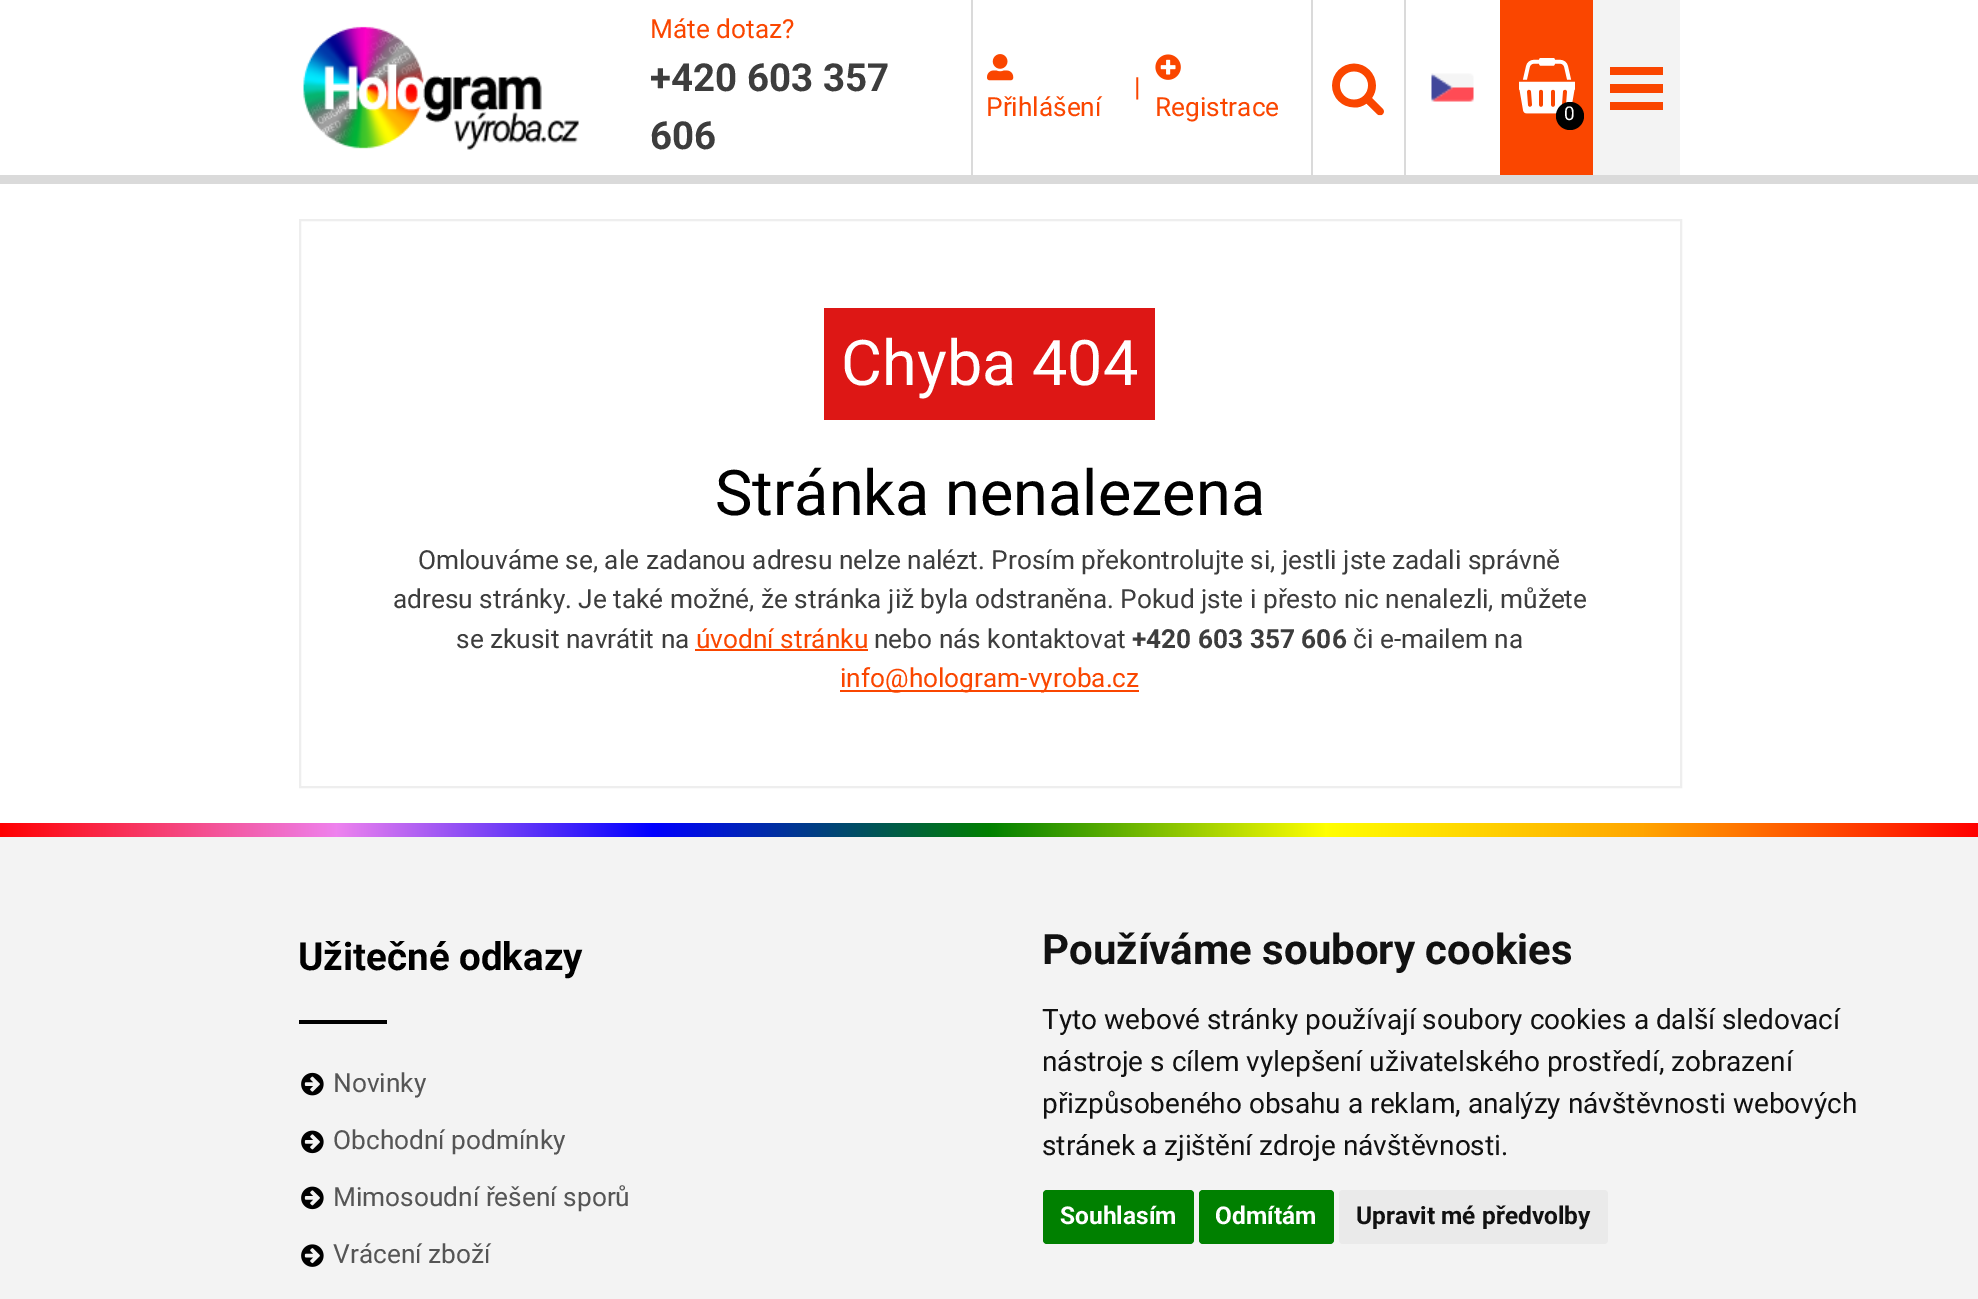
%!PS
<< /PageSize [1978 1299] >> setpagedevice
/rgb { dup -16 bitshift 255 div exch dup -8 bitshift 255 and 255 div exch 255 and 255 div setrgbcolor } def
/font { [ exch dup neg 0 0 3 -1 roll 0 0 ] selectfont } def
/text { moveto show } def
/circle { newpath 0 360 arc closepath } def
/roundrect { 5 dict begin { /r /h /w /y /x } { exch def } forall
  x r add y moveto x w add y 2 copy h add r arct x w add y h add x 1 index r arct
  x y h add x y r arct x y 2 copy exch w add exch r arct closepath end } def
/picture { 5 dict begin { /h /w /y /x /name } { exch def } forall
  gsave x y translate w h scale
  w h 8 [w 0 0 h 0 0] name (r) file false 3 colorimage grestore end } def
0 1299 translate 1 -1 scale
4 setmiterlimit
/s1 { /Roboto-Regular 26.25 font 16#FA4600 rgb } def
/s2 { /Roboto-Bold 38.5 font 16#3D3D3D rgb } def
/s3 { /Roboto-Regular 19 font 16#FFFFFF rgb } def
/s4 { /Roboto-Regular 63 font 16#FFFFFF rgb } def
/s5 { /Roboto-Regular 63 font 16#000000 rgb } def
/s6 { /Roboto-Regular 26.25 font 16#3D3D3D rgb } def
/s7 { /Roboto-Bold 26.25 font 16#3D3D3D rgb } def
/s8 { /Roboto-Bold 38.5 font 16#000000 rgb } def
/s9 { /Roboto-Regular 26.25 font 16#555555 rgb } def
/s10 { /Roboto-Bold 42 font 16#111111 rgb } def
/s11 { /Roboto-Regular 28 font 16#111111 rgb } def
/s12 { /Roboto-Bold 24.5 font 16#FFFFFF rgb } def
/s13 { /Roboto-Bold 24.5 font 16#111111 rgb } def
16#FFFFFF rgb
0 0 1978 1299 rectfill
16#DADADA rgb
0 175 1978 9 rectfill
(pic1.raw) 303 26 277 124 picture
s1
(Máte dotaz?) 650 38 text
s2
(+420 603 357) 650 91 text
(606) 650 149 text
16#DADADA rgb
971 0 2 175 rectfill
s1
(|) 1134 96 text
(pic2.raw) 987 54 27 27 picture
(Přihlášení) 986 116 text
(pic3.raw) 1155 54 26 26 picture
(Registrace) 1155 116 text
16#DADADA rgb
1404 0 2 175 rectfill
1311 0 2 175 rectfill
(pic4.raw) 1332 63 52 53 picture
(pic5.raw) 1431 73 43 29 picture
16#FA4600 rgb
1500 0 93 175 rectfill
(pic6.raw) 1519 58 56 56 picture
16#000000 rgb
1570 116 14 circle fill
s3
(0) 1564 120 text
16#F3F3F3 rgb
1593 0 87 175 rectfill
16#FA4600 rgb
1610 67 53 8 rectfill
1610 84 53 9 rectfill
1610 102 53 8 rectfill
16#EEEEEE rgb
2 setlinewidth
300 220 1381 567 rectstroke
16#DD1715 rgb
824 308 331 112 rectfill
s4
(Chyba 404) 841 385 text
s5
(Stránka nenalezena) 715 515 text
s6
(Omlouváme se, ale zadanou adresu nelze nalézt. Prosím překontrolujte si, jestli jste zadali správně) 418 569 text
(adresu stránky. Je také možné, že stránka již byla odstraněna. Pokud jste i přesto nic nenalezli, můžete) 393 608 text
(se zkusit navrátit na) 456 648 text
s1
(úvodní stránku) 696 648 text
695 649 173 2 rectfill
s6
(nebo nás kontaktovat) 874 648 text
s7
(+420 603 357 606) 1132 648 text
s6
(či e-mailem na) 1353 648 text
16#FA4600 rgb
840 690 299 2 rectfill
(info@hologram-vyroba.cz) 840 687 text
gsave 0 823 moveto 1978 823 lineto 1978 837 lineto 0 837 lineto closepath clip newpath
<< /ShadingType 2 /ColorSpace /DeviceRGB /Coords [0 830 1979 829] /Extend [true true] /Function << /FunctionType 3 /Domain [0 1] /Functions [<< /FunctionType 2 /Domain [0 1] /C0 [1 0 0] /C1 [0.933 0.51 0.933] /N 1 >> << /FunctionType 2 /Domain [0 1] /C0 [0.933 0.51 0.933] /C1 [0 0 1] /N 1 >> << /FunctionType 2 /Domain [0 1] /C0 [0 0 1] /C1 [0 0.502 0] /N 1 >> << /FunctionType 2 /Domain [0 1] /C0 [0 0.502 0] /C1 [1 1 0] /N 1 >> << /FunctionType 2 /Domain [0 1] /C0 [1 1 0] /C1 [1 0.647 0] /N 1 >> << /FunctionType 2 /Domain [0 1] /C0 [1 0.647 0] /C1 [1 0 0] /N 1 >>] /Bounds [0.17 0.33 0.5 0.67 0.83] /Encode [0 1 0 1 0 1 0 1 0 1 0 1] >> >> shfill grestore
16#F3F3F3 rgb
0 837 1978 462 rectfill
s8
(Užitečné odkazy) 298 970 text
299 1020 88 4 rectfill
(pic7.raw) 301 1072 23 24 picture
s9
(Novinky) 333 1092 text
(pic8.raw) 301 1130 23 24 picture
(Obchodní podmínky) 333 1149 text
(pic8.raw) 301 1186 23 24 picture
(Mimosoudní řešení sporů) 333 1206 text
(pic9.raw) 301 1244 23 23 picture
(Vrácení zboží) 333 1263 text
s10
(Používáme soubory cookies) 1042 964 text
s11
(Tyto webové stránky používají soubory cookies a další sledovací) 1042 1029 text
(nástroje s cílem vylepšení uživatelského prostředí, zobrazení) 1042 1071 text
(přizpůsobeného obsahu a reklam, analýzy návštěvnosti webových) 1042 1113 text
(stránek a zjištění zdroje návštěvnosti.) 1042 1155 text
16#008000 rgb
1043 1190 151 54 4 roundrect fill
s12
(Souhlasím) 1060 1224 text
16#008000 rgb
1199 1190 135 54 4 roundrect fill
s12
(Odmítám) 1215 1224 text
16#EAEAEA rgb
1339 1190 269 54 4 roundrect fill
s13
(Upravit mé předvolby) 1356 1224 text
showpage
